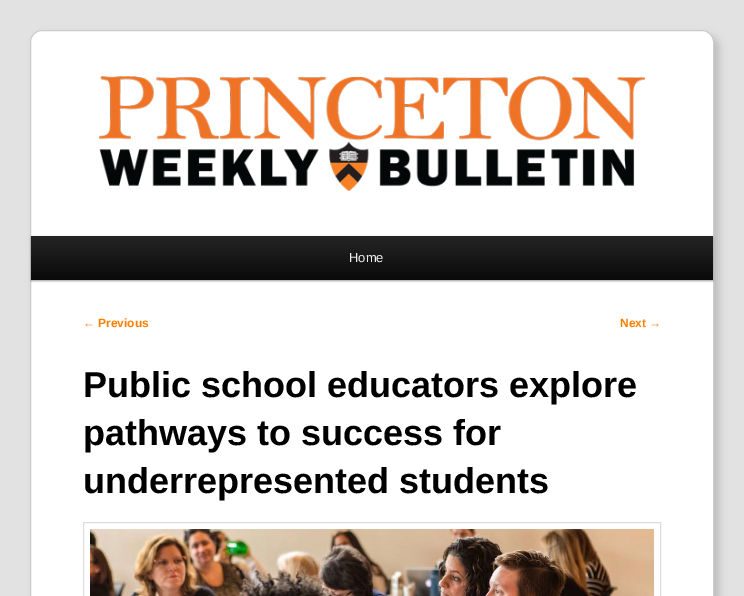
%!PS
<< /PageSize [744 596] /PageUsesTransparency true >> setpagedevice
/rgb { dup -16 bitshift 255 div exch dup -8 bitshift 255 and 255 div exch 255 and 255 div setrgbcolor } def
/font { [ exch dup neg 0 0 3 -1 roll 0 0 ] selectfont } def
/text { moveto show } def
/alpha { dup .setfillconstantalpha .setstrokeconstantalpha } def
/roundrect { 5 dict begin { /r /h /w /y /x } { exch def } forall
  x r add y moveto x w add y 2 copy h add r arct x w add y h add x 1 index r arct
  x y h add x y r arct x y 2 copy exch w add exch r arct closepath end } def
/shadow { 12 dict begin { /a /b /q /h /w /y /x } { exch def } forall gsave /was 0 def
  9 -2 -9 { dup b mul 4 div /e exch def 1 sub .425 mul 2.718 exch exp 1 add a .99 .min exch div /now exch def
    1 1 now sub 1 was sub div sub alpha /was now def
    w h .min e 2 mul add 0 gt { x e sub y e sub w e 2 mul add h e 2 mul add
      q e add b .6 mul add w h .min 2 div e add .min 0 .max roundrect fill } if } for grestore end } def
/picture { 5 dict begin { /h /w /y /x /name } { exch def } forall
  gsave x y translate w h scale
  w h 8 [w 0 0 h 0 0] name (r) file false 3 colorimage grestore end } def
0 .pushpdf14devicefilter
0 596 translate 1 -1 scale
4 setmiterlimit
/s1 { /LiberationSans-Regular 13 font 16#EEEEEE rgb } def
/s2 { /LiberationSans-Regular 12 font 16#FA7F00 rgb } def
/s3 { /LiberationSans-Bold 12 font 16#FA7F00 rgb } def
/s4 { /LiberationSans-Bold 36 font 16#000000 rgb } def
16#E2E2E2 rgb
0 0 744 596 rectfill
16#BBBBBB rgb
35 35 684 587 12 4.5 1 shadow
16#FFFFFF rgb
30.5 30.5 683 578 11.5 roundrect gsave fill grestore
16#CCCCCC rgb
stroke
(pic1.raw) 99 76 546 115 picture
16#000000 rgb
31 237 682 44 0 1 0.4 shadow
gsave 31 236 moveto 713 236 lineto 713 280 lineto 31 280 lineto closepath clip newpath
<< /ShadingType 2 /ColorSpace /DeviceRGB /Coords [372 236 372 280] /Extend [true true] /Function << /FunctionType 2 /Domain [0 1] /C0 [0.145 0.145 0.145] /C1 [0.039 0.039 0.039] /N 1 >> >> shfill grestore
s1
(Home) 349 262 text
s2
(←) 83 327 text
s3
(Previous) 98 327 text
(Next) 620 327 text
s2
(→) 649 327 text
s4
(Public school educators explore) 83 397 text
(pathways to success for) 83 445 text
(underrepresented students) 83 493 text
16#DDDDDD rgb
83.5 522.5 577 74 rectstroke
(pic2.raw) 90 529 564 67 picture
.poppdf14devicefilter showpage
